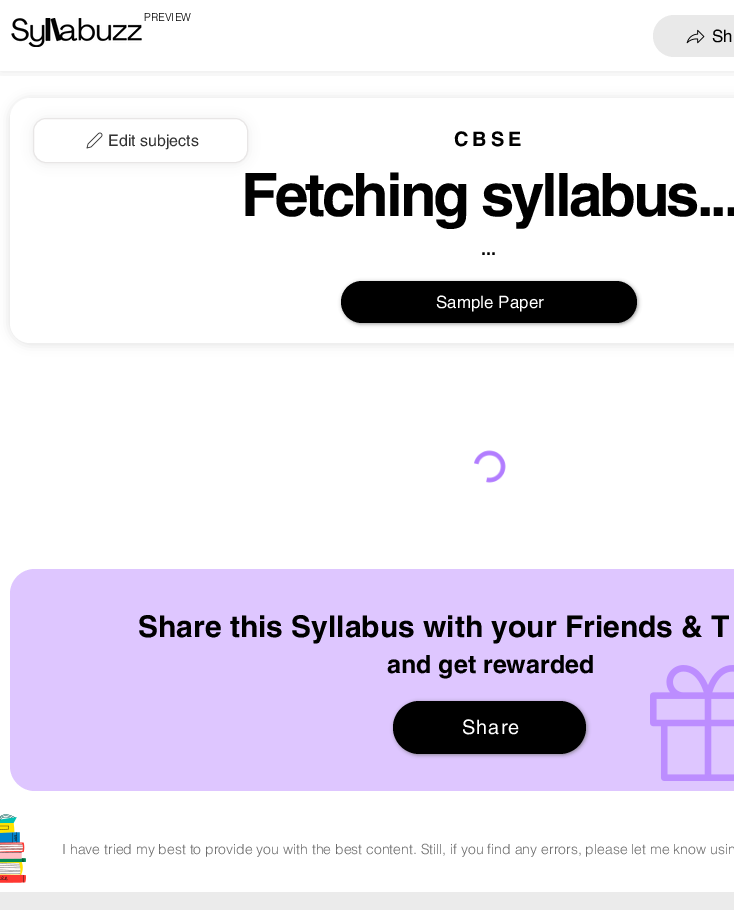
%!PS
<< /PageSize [734 910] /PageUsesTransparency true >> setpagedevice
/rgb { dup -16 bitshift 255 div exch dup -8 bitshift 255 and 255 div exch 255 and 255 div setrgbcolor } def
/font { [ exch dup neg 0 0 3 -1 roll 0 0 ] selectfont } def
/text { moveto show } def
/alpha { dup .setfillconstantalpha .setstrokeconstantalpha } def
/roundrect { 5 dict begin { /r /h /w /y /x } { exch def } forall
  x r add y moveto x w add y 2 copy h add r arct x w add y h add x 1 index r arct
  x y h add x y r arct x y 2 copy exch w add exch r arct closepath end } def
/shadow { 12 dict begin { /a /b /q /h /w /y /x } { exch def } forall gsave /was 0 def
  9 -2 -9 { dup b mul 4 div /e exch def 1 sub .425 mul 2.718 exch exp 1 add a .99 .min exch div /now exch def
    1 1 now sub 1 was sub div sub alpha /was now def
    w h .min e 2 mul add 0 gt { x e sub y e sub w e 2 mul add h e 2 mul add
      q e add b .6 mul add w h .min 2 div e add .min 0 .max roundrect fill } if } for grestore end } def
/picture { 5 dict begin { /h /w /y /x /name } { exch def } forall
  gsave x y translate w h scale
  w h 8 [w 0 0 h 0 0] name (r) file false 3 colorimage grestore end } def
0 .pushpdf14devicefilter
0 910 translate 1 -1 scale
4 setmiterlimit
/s1 { /helvetica-Light 11 font 16#000000 rgb } def
/s2 { /helvetica-Regular 17 font 16#000000 rgb } def
/s3 { /helvetica-Regular 16 font 16#333333 rgb } def
/s4 { /helvetica-Bold 18 font 16#000000 rgb } def
/s5 { /helvetica-Regular 17 font 16#FFFFFF rgb } def
/s6 { /helvetica-Bold 30 font 16#000000 rgb } def
/s7 { /helvetica-Bold 25 font 16#000000 rgb } def
/s8 { /helvetica-Light 14 font 16#6D6D6D rgb } def
16#FFFFFF rgb
0 0 734 910 rectfill
gsave
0 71 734 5 rectclip
16#000000 rgb
0 0 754 71 0 6.5 0.1 shadow
grestore
s1
(PREVIEW) 144 21 text
(pic1.raw) 11 18 131 29 picture
16#E9E9E9 rgb
653 15 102 42 21 roundrect fill
(pic2.raw) 686 29 19 15 picture
s2
(Sh) 712 42 text
10 99 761 245 20 5.5 0.12 shadow
16#FFFFFF rgb
10 98 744 245 20 roundrect fill
16#000000 rgb
33 119 215 45 13 5.5 0.07 shadow
16#FFFFFF rgb
33.5 118.5 214 44 12.5 roundrect gsave fill grestore
16#E8E6E6 rgb
stroke
(pic3.raw) 86 132 17 17 picture
s3
(Edit subjects) 108 146 text
/helvetica-Bold 20 font
16#000000 rgb
454 146 moveto 4 0 (CBSE) ashow
/helvetica-Bold 60 font
241 216 moveto -3 0 (Fetching syllabus...) ashow
s4
(...) 481 255 text
16#6D6D6D rgb
342 282 296 42 21 2 0.7 shadow
16#000000 rgb
341 281 296 42 21 roundrect fill
s5
(Sample Paper) 436 308 text
(pic4.raw) 474 450 32 33 picture
16#DEC6FF rgb
10 569 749 222 25 roundrect fill
s6
(Share this Syllabus with your Friends & T) 138 637 text
s7
(and get rewarded) 387 673 text
16#6D6D6D rgb
394 702 193 53 26.5 2 0.75 shadow
16#000000 rgb
393 701 193 53 26.5 roundrect fill
/helvetica-Regular 20 font
16#FFFFFF rgb
462 734 moveto 1 0 (Share) ashow
(pic5.raw) 650 665 84 116 picture
(pic6.raw) 0 814 26 69 picture
s8
(I have tried my best to provide you with the best content. Still, if you find any errors, please let me know usin) 62 854 text
16#EBEBEB rgb
0 892 734 18 rectfill
.poppdf14devicefilter showpage
